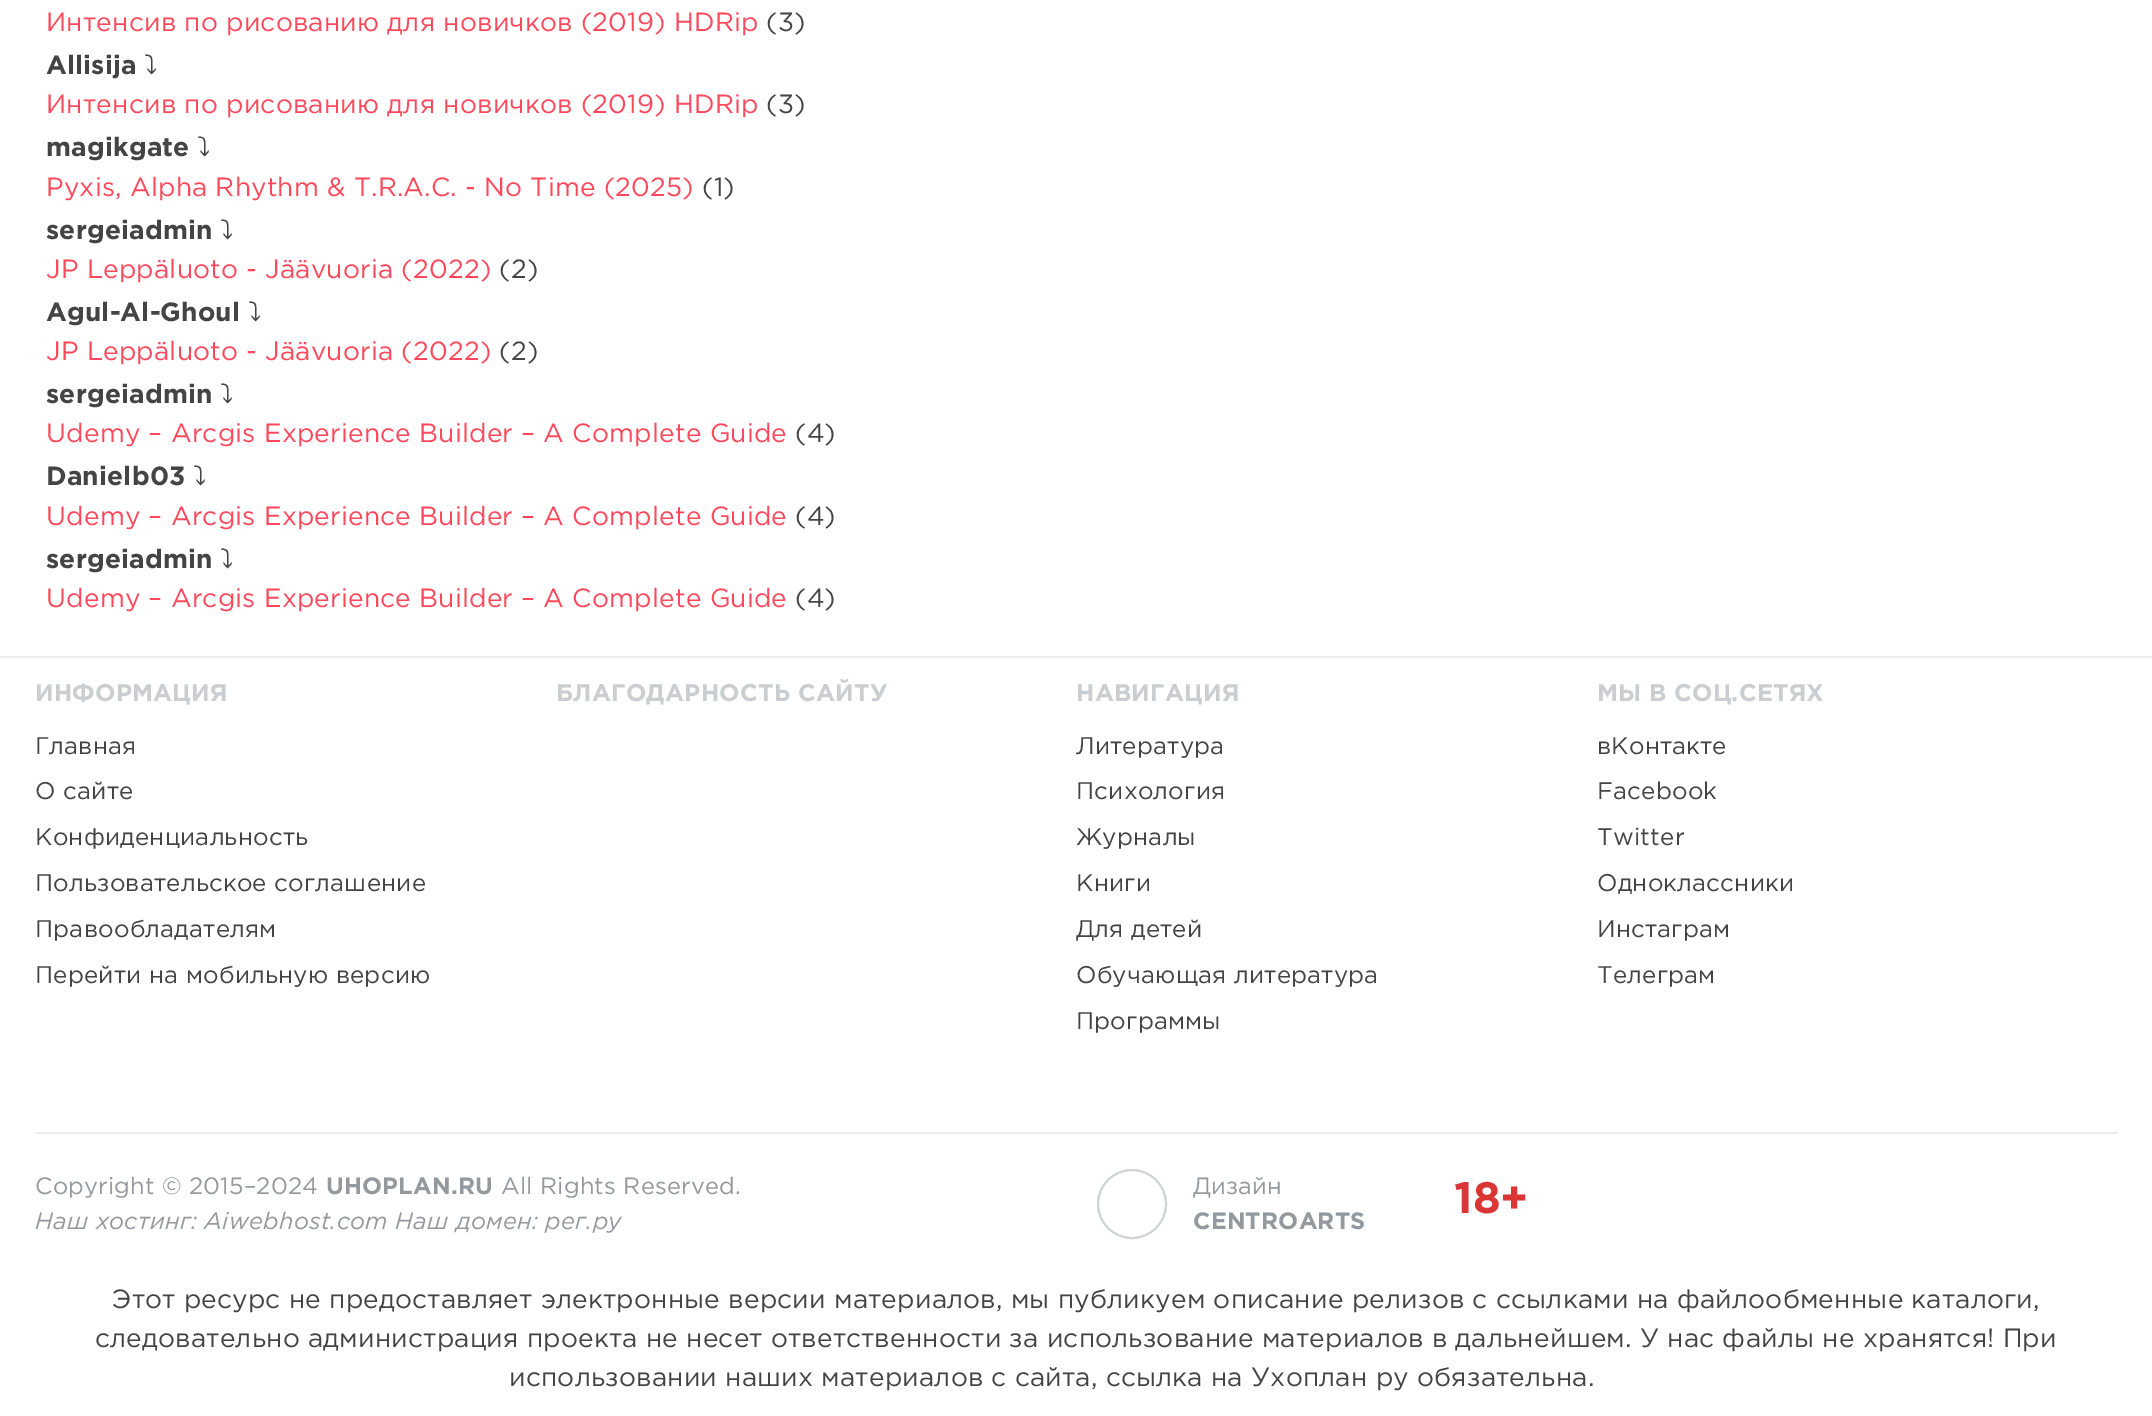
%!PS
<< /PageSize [2152 1416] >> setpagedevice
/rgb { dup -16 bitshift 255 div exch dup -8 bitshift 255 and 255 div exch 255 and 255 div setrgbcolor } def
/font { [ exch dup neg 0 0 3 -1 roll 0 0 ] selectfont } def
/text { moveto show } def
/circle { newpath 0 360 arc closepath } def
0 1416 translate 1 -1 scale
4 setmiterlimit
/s1 { /Gotham-Bold 44 font 16#DA3636 rgb } def
16#FFFFFF rgb
0 0 2152 1416 rectfill
/Gotham-Regular 26.25 font
16#FF485B rgb
46 31 moveto 0.21 0 (Интенсив по рисованию для новичков \(2019\) HDRip) ashow
16#444444 rgb
766 31 moveto 0.21 0 (\(3\)) ashow
/Gotham-Bold 26.25 font
46 74 moveto 0.21 0 (Allisija) ashow
/IPAGothic-Regular 26.25 font
144 74 moveto 0.21 0 (⤵) ashow
/Gotham-Regular 26.25 font
16#FF485B rgb
46 113 moveto 0.21 0 (Интенсив по рисованию для новичков \(2019\) HDRip) ashow
16#444444 rgb
766 113 moveto 0.21 0 (\(3\)) ashow
/Gotham-Bold 26.25 font
46 156 moveto 0.21 0 (magikgate) ashow
/IPAGothic-Regular 26.25 font
197 156 moveto 0.21 0 (⤵) ashow
/Gotham-Regular 26.25 font
16#FF485B rgb
46 196 moveto 0.21 0 (Pyxis, Alpha Rhythm & T.R.A.C. - No Time \(2025\)) ashow
16#444444 rgb
702 196 moveto 0.21 0 (\(1\)) ashow
/Gotham-Bold 26.25 font
46 239 moveto 0.21 0 (sergeiadmin) ashow
/IPAGothic-Regular 26.25 font
220 239 moveto 0.21 0 (⤵) ashow
/Gotham-Regular 26.25 font
16#FF485B rgb
46 278 moveto 0.21 0 (JP Leppäluoto - Jäävuoria \(2022\)) ashow
16#444444 rgb
499 278 moveto 0.21 0 (\(2\)) ashow
/Gotham-Bold 26.25 font
46 321 moveto 0.21 0 (Agul-Al-Ghoul) ashow
/IPAGothic-Regular 26.25 font
248 321 moveto 0.21 0 (⤵) ashow
/Gotham-Regular 26.25 font
16#FF485B rgb
46 360 moveto 0.21 0 (JP Leppäluoto - Jäävuoria \(2022\)) ashow
16#444444 rgb
499 360 moveto 0.21 0 (\(2\)) ashow
/Gotham-Bold 26.25 font
46 403 moveto 0.21 0 (sergeiadmin) ashow
/IPAGothic-Regular 26.25 font
220 403 moveto 0.21 0 (⤵) ashow
/Gotham-Regular 26.25 font
16#FF485B rgb
46 442 moveto 0.21 0 (Udemy – Arcgis Experience Builder – A Complete Guide) ashow
16#444444 rgb
795 442 moveto 0.21 0 (\(4\)) ashow
/Gotham-Bold 26.25 font
46 485 moveto 0.21 0 (Danielb03) ashow
/IPAGothic-Regular 26.25 font
193 485 moveto 0.21 0 (⤵) ashow
/Gotham-Regular 26.25 font
16#FF485B rgb
46 525 moveto 0.21 0 (Udemy – Arcgis Experience Builder – A Complete Guide) ashow
16#444444 rgb
795 525 moveto 0.21 0 (\(4\)) ashow
/Gotham-Bold 26.25 font
46 568 moveto 0.21 0 (sergeiadmin) ashow
/IPAGothic-Regular 26.25 font
220 568 moveto 0.21 0 (⤵) ashow
/Gotham-Regular 26.25 font
16#FF485B rgb
46 607 moveto 0.21 0 (Udemy – Arcgis Experience Builder – A Complete Guide) ashow
16#444444 rgb
795 607 moveto 0.21 0 (\(4\)) ashow
16#ECEDED rgb
0 656 2152 2 rectfill
/Gotham-Bold 24.1 font
16#CACED1 rgb
35 701 moveto 0.21 0 (ИНФОРМАЦИЯ) ashow
/Gotham-Regular 24.1 font
16#444444 rgb
35 754 moveto 0.21 0 (Главная) ashow
35 799 moveto 0.21 0 (О сайте) ashow
35 845 moveto 0.21 0 (Конфиденциальность) ashow
35 891 moveto 0.21 0 (Пользовательское соглашение) ashow
35 937 moveto 0.21 0 (Правообладателям) ashow
35 983 moveto 0.21 0 (Перейти на мобильную версию) ashow
/Gotham-Bold 24.1 font
16#CACED1 rgb
556 701 moveto 0.21 0 (БЛАГОДАРНОСТЬ САЙТУ) ashow
1076 701 moveto 0.21 0 (НАВИГАЦИЯ) ashow
/Gotham-Regular 24.1 font
16#444444 rgb
1076 754 moveto 0.21 0 (Литература) ashow
1076 799 moveto 0.21 0 (Психология) ashow
1076 845 moveto 0.21 0 (Журналы) ashow
1076 891 moveto 0.21 0 (Книги) ashow
1076 937 moveto 0.21 0 (Для детей) ashow
1076 983 moveto 0.21 0 (Обучающая литература) ashow
1076 1029 moveto 0.21 0 (Программы) ashow
/Gotham-Bold 24.1 font
16#CACED1 rgb
1597 701 moveto 0.21 0 (МЫ В СОЦ.СЕТЯХ) ashow
/Gotham-Regular 24.1 font
16#444444 rgb
1597 754 moveto 0.21 0 (вКонтакте) ashow
1597 799 moveto 0.21 0 (Facebook) ashow
1597 845 moveto 0.21 0 (Twitter) ashow
1597 891 moveto 0.21 0 (Одноклассники) ashow
1597 937 moveto 0.21 0 (Инстаграм) ashow
1597 983 moveto 0.21 0 (Телеграм) ashow
16#ECEDED rgb
35 1132 2083 2 rectfill
/Gotham-Regular 23.6 font
16#94999E rgb
35 1194 moveto 0.21 0 (Copyright © 2015–2024) ashow
/Gotham-Bold 23.6 font
326 1194 moveto 0.21 0 (UHOPLAN.RU) ashow
/Gotham-Regular 23.6 font
501 1194 moveto 0.21 0 (All Rights Reserved.) ashow
/Gotham-Italic 23.6 font
35 1229 moveto 0.21 0 (Наш хостинг: Aiwebhost.com Наш домен: рег.ру) ashow
16#D1D3D5 rgb
2 setlinewidth
1132 1204 34 circle stroke
/Gotham-Regular 23.6 font
16#94999E rgb
1193 1194 moveto 0.21 0 (Дизайн) ashow
/Gotham-Bold 23.6 font
1193 1229 moveto 0.21 0 (CENTROARTS) ashow
s1
(18+) 1454 1213 text
/Gotham-Regular 26.25 font
16#444444 rgb
112 1308 moveto 0.21 0 (Этот ресурс не предоставляет электронные версии материалов, мы публикуем описание релизов с ссылками на файлообменные каталоги,) ashow
95 1347 moveto 0.21 0 (следовательно администрация проекта не несет ответственности за использование материалов в дальнейшем. У нас файлы не хранятся! При) ashow
509 1386 moveto 0.21 0 (использовании наших материалов с сайта, ссылка на Ухоплан ру обязательна.) ashow
showpage
